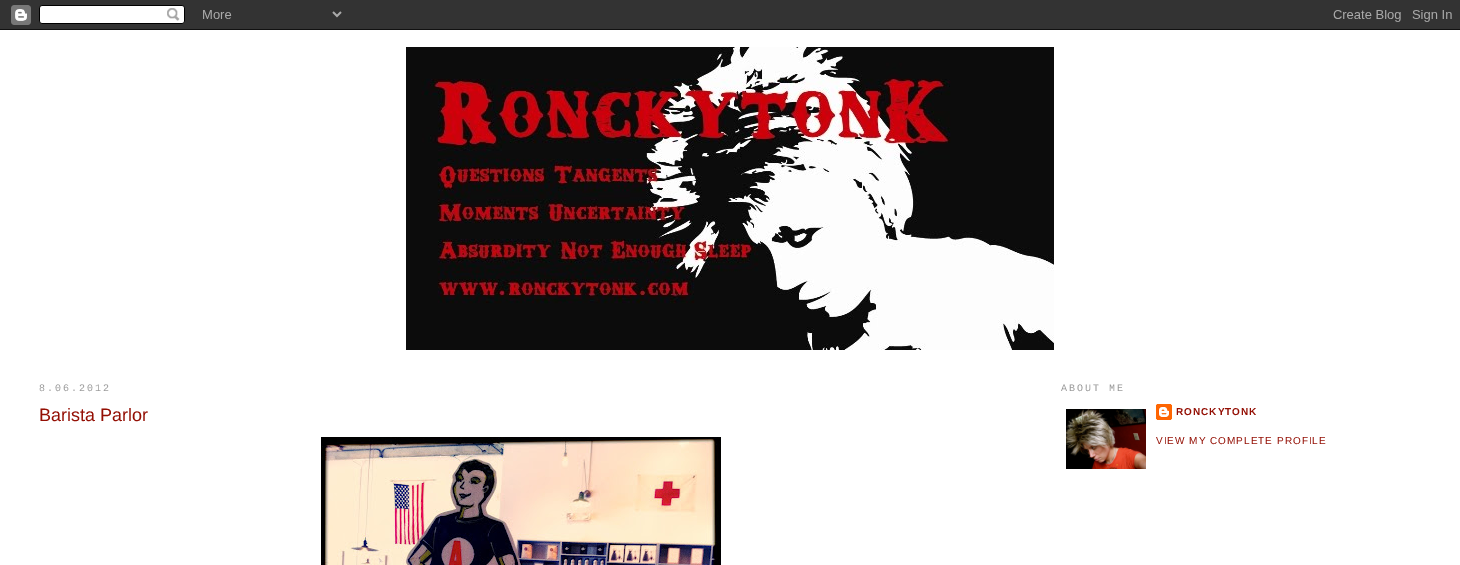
%!PS
<< /PageSize [1460 565] >> setpagedevice
/rgb { dup -16 bitshift 255 div exch dup -8 bitshift 255 and 255 div exch 255 and 255 div setrgbcolor } def
/font { [ exch dup neg 0 0 3 -1 roll 0 0 ] selectfont } def
/text { moveto show } def
/picture { 5 dict begin { /h /w /y /x /name } { exch def } forall
  gsave x y translate w h scale
  w h 8 [w 0 0 h 0 0] name (r) file false 3 colorimage grestore end } def
0 565 translate 1 -1 scale
4 setmiterlimit
/s1 { /LiberationSans-Regular 18 font 16#940F04 rgb } def
16#FFFFFF rgb
0 0 1460 565 rectfill
(pic1.raw) 0 0 1460 30 picture
(pic2.raw) 406 47 648 303 picture
/LiberationMono-Regular 10 font
16#999999 rgb
39 391 moveto 2 0 (8.06.2012) ashow
s1
(Barista Parlor) 39 421 text
(pic3.raw) 321 437 400 128 picture
/LiberationMono-Regular 10 font
16#999999 rgb
1061 391 moveto 2 0 (ABOUT ME) ashow
(pic4.raw) 1066 409 80 60 picture
(pic5.raw) 1156 404 16 16 picture
/LiberationSans-Bold 10 font
16#940F04 rgb
1176 415 moveto 1 0 (RONCKYTONK) ashow
/LiberationSans-Regular 10 font
1156 444 moveto 1 0 (VIEW MY COMPLETE PROFILE) ashow
showpage
